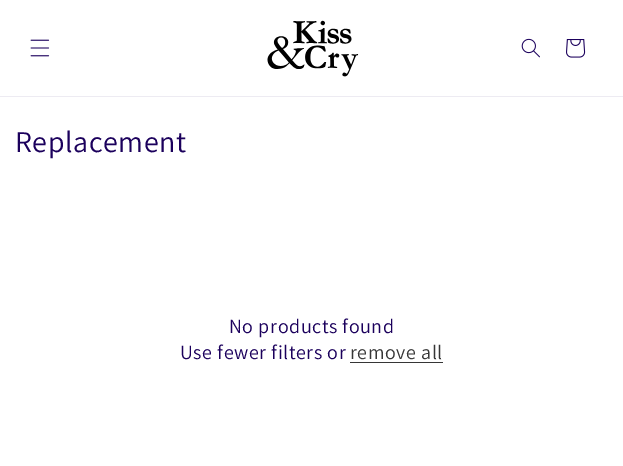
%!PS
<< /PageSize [623 466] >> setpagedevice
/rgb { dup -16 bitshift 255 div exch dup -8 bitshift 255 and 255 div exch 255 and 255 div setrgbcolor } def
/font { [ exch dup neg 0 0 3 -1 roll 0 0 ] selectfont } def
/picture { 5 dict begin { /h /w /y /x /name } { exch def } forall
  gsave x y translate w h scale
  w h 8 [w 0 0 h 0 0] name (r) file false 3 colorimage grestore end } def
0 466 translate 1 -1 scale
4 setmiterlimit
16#FFFFFF rgb
0 0 623 466 rectfill
16#EDEBF2 rgb
0 96 623 1 rectfill
(pic1.raw) 30 39 20 18 picture
(pic2.raw) 267 20 92 57 picture
(pic3.raw) 521 38 19 20 picture
(pic4.raw) 566 39 20 19 picture
/Assistant-Regular 30 font
16#1B005C rgb
15 152 moveto 0.6 0 (Replacement) ashow
/Assistant-Regular 20 font
229 333 moveto 0.6 0 (No products found) ashow
180 359 moveto 0.6 0 (Use fewer filters or) ashow
16#363636 rgb
350 359 moveto 0.6 0 (remove all) ashow
350 362 93 1 rectfill
showpage
